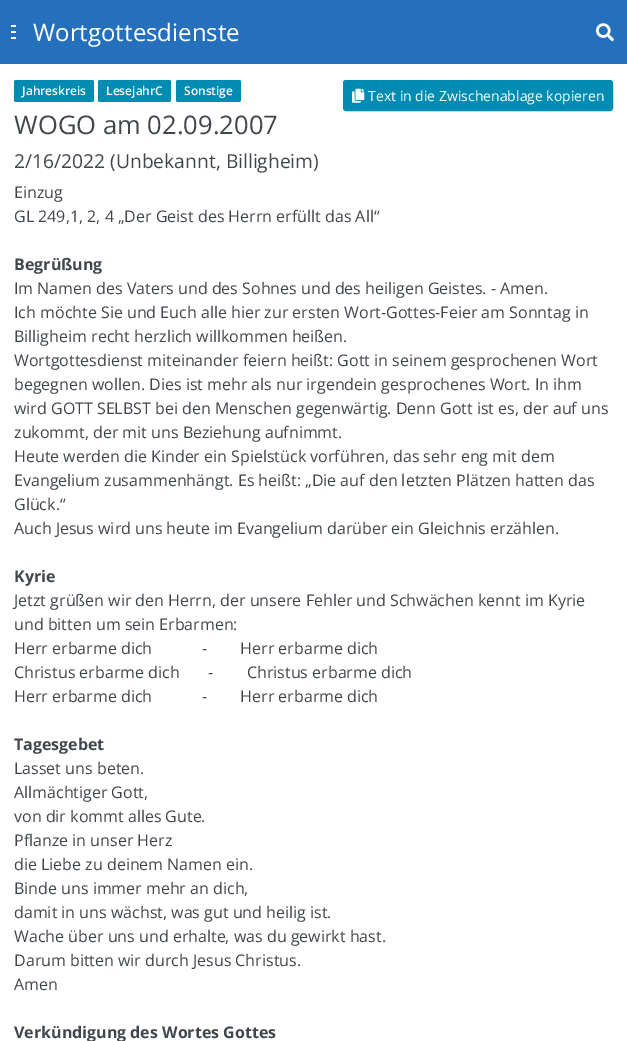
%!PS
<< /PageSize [627 1041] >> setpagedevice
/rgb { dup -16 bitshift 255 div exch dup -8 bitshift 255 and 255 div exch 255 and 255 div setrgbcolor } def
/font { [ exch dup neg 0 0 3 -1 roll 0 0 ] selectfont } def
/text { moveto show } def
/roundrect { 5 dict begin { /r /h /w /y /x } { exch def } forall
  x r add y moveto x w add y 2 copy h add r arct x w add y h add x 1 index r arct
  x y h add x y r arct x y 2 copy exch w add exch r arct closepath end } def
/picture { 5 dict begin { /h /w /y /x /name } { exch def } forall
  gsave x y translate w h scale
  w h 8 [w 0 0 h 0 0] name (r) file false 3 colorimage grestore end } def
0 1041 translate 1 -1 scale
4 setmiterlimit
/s1 { /OpenSans-Regular 24 font 16#FFFFFF rgb } def
/s2 { /OpenSans-SemiBold 12 font 16#FFFFFF rgb } def
/s3 { /OpenSans-Regular 14 font 16#FFFFFF rgb } def
/s4 { /OpenSans-Regular 25.6 font 16#41464D rgb } def
/s5 { /OpenSans-Regular 19.25 font 16#41464D rgb } def
/s6 { /OpenSans-Regular 16 font 16#41464D rgb } def
/s7 { /OpenSans-Bold 16 font 16#41464D rgb } def
16#FFFFFF rgb
0 0 627 1041 rectfill
16#2470BD rgb
0 0 627 64 rectfill
16#FFFFFF rgb
11 31 5 2 rectfill
11 25 5 2 rectfill
11 37 5 2 rectfill
s1
(Wortgottesdienste) 33 41 text
(pic1.raw) 596 23 18 19 picture
16#008BB2 rgb
14 80 80 22 2 roundrect fill
s2
(Jahreskreis) 22 95 text
16#008BB2 rgb
98 80 73 22 2 roundrect fill
s2
(LesejahrC) 106 95 text
16#008BB2 rgb
176 80 65 22 2 roundrect fill
s2
(Sonstige) 184 95 text
16#008BB2 rgb
343.5 80.5 269 30 2.5 roundrect gsave fill grestore
stroke
(pic2.raw) 352 88 13 15 picture
s3
(Text in die Zwischenablage kopieren) 368 101 text
s4
(WOGO am 02.09.2007) 14 134 text
s5
(2/16/2022 \(Unbekannt, Billigheim\)) 14 168 text
s6
(Einzug) 14 198 text
(GL 249,1, 2, 4 „Der Geist des Herrn erfüllt das All“) 14 222 text
s7
(Begrüßung) 14 270 text
s6
(Im Namen des Vaters und des Sohnes und des heiligen Geistes. - Amen.) 14 294 text
(Ich möchte Sie und Euch alle hier zur ersten Wort-Gottes-Feier am Sonntag in) 14 318 text
(Billigheim recht herzlich willkommen heißen.) 14 342 text
(Wortgottesdienst miteinander feiern heißt: Gott in seinem gesprochenen Wort) 14 366 text
(begegnen wollen. Dies ist mehr als nur irgendein gesprochenes Wort. In ihm) 14 390 text
(wird GOTT SELBST bei den Menschen gegenwärtig. Denn Gott ist es, der auf uns) 14 414 text
(zukommt, der mit uns Beziehung aufnimmt.) 14 438 text
(Heute werden die Kinder ein Spielstück vorführen, das sehr eng mit dem) 14 462 text
(Evangelium zusammenhängt. Es heißt: „Die auf den letzten Plätzen hatten das) 14 486 text
(Glück.“) 14 510 text
(Auch Jesus wird uns heute im Evangelium darüber ein Gleichnis erzählen.) 14 534 text
s7
(Kyrie) 14 582 text
s6
(Jetzt grüßen wir den Herrn, der unsere Fehler und Schwächen kennt im Kyrie) 14 606 text
(und bitten um sein Erbarmen:) 14 630 text
(Herr erbarme dich            -        Herr erbarme dich) 14 654 text
(Christus erbarme dich       -        Christus erbarme dich) 14 678 text
(Herr erbarme dich            -        Herr erbarme dich) 14 702 text
s7
(Tagesgebet) 14 750 text
s6
(Lasset uns beten.) 14 774 text
(Allmächtiger Gott,) 14 798 text
(von dir kommt alles Gute.) 14 822 text
(Pflanze in unser Herz) 14 846 text
(die Liebe zu deinem Namen ein.) 14 870 text
(Binde uns immer mehr an dich,) 14 894 text
(damit in uns wächst, was gut und heilig ist.) 14 918 text
(Wache über uns und erhalte, was du gewirkt hast.) 14 942 text
(Darum bitten wir durch Jesus Christus.) 14 966 text
(Amen) 14 990 text
s7
(Verkündigung des Wortes Gottes) 14 1038 text
showpage
